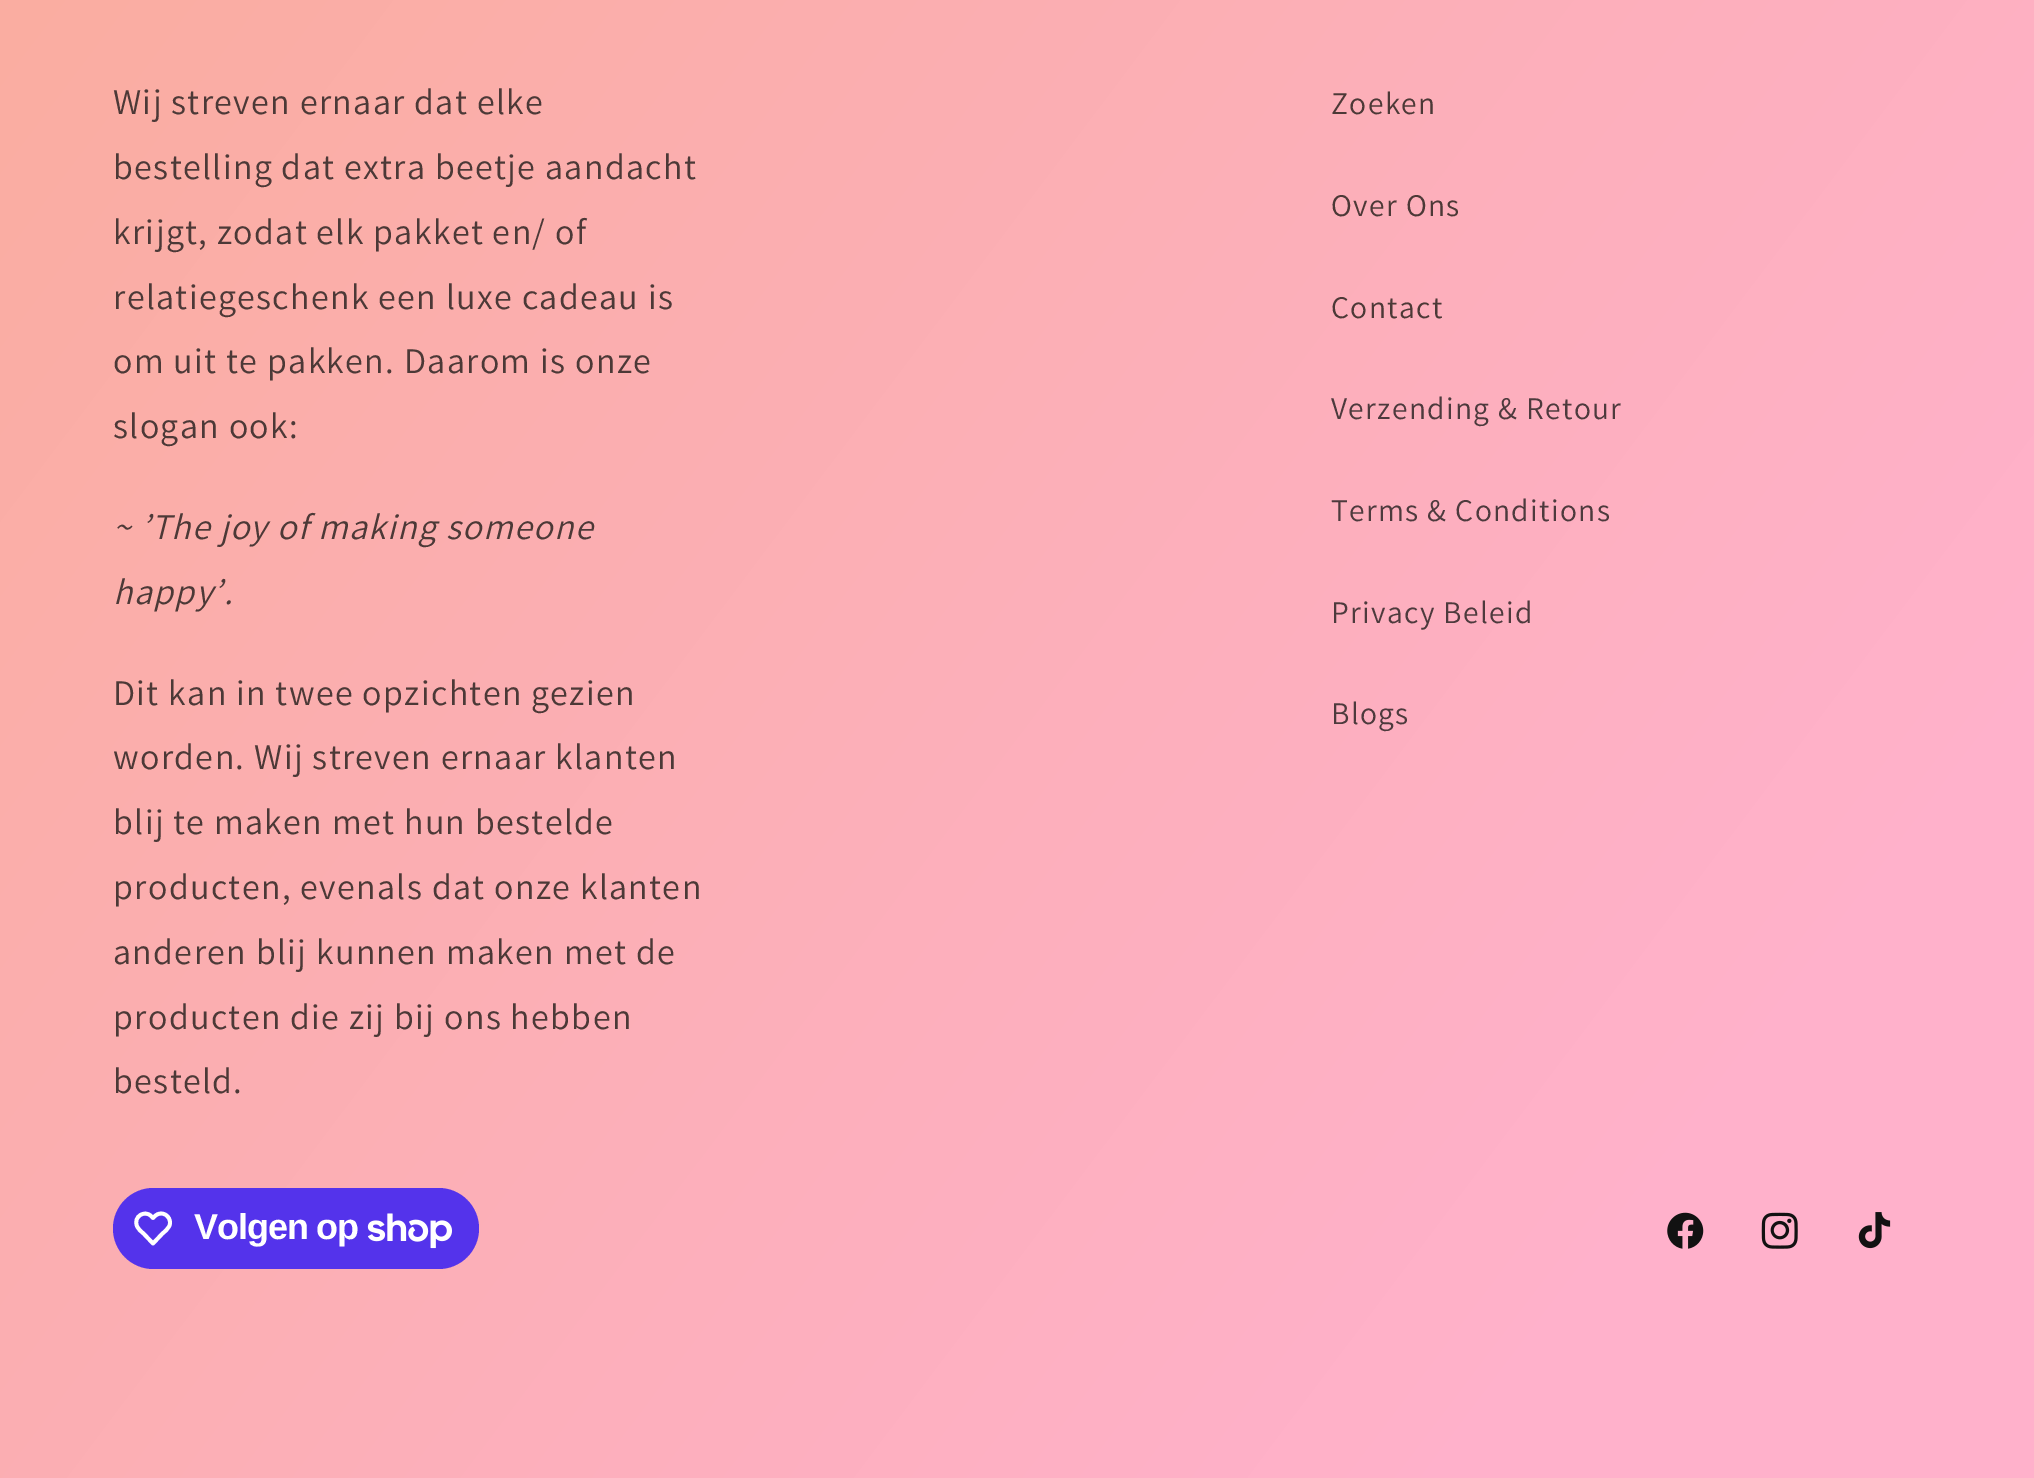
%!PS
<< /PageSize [2034 1478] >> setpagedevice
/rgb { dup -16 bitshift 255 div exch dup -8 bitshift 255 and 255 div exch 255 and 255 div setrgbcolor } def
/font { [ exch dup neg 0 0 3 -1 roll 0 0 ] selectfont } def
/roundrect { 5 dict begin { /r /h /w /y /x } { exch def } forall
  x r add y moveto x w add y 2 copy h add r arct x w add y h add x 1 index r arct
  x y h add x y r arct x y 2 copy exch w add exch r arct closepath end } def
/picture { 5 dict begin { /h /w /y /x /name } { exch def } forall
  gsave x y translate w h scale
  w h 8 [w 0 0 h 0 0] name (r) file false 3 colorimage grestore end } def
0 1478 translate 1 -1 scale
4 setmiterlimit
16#FFFFFF rgb
0 0 2034 1478 rectfill
gsave 0 0 moveto 2034 0 lineto 2034 1478 lineto 0 1478 lineto closepath clip newpath
<< /ShadingType 2 /ColorSpace /DeviceRGB /Coords [13 -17 2021 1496] /Extend [true true] /Function << /FunctionType 3 /Domain [0 1] /Functions [<< /FunctionType 2 /Domain [0 1] /C0 [0.98 0.678 0.631] /C1 [1 0.694 0.796] /N 1 >> << /FunctionType 2 /Domain [0 1] /C0 [1 0.694 0.796] /C1 [1 0.694 0.796] /N 1 >>] /Bounds [0.81] /Encode [0 1 0 1] >> >> shfill grestore
/Assistant-Regular 36 font
16#4C3937 rgb
113 114 moveto 1.35 0 (Wij streven ernaar dat elke) ashow
113 179 moveto 1.35 0 (bestelling dat extra beetje aandacht) ashow
113 244 moveto 1.35 0 (krijgt, zodat elk pakket en/ of) ashow
113 309 moveto 1.35 0 (relatiegeschenk een luxe cadeau is) ashow
113 373 moveto 1.35 0 (om uit te pakken. Daarom is onze) ashow
113 438 moveto 1.35 0 (slogan ook:) ashow
/Assistant-Italic 36 font
113 539 moveto 1.35 0 (~ ’The joy of making someone) ashow
113 604 moveto 1.35 0 (happy’.) ashow
/Assistant-Regular 36 font
113 705 moveto 1.35 0 (Dit kan in twee opzichten gezien) ashow
113 769 moveto 1.35 0 (worden. Wij streven ernaar klanten) ashow
113 834 moveto 1.35 0 (blij te maken met hun bestelde) ashow
113 899 moveto 1.35 0 (producten, evenals dat onze klanten) ashow
113 964 moveto 1.35 0 (anderen blij kunnen maken met de) ashow
113 1029 moveto 1.35 0 (producten die zij bij ons hebben) ashow
113 1093 moveto 1.35 0 (besteld.) ashow
/Assistant-Regular 31.5 font
1331 114 moveto 1.35 0 (Zoeken) ashow
1331 216 moveto 1.35 0 (Over Ons) ashow
1331 318 moveto 1.35 0 (Contact) ashow
16#4D3A3D rgb
1331 419 moveto 1.35 0 (Verzending & Retour) ashow
1331 521 moveto 1.35 0 (Terms & Conditions) ashow
1331 623 moveto 1.35 0 (Privacy Beleid) ashow
1331 724 moveto 1.35 0 (Blogs) ashow
16#5433EB rgb
113 1188 366 81 40.5 roundrect fill
16#FFFFFF rgb
3.8 setlinewidth
1 setlinejoin
151 1216 moveto 153 1218 lineto 154.5 1216.5 156 1214.5 158.5 1214 curveto 165.5 1211.5 172 1219 169.5 1225.5 curveto 168 1229 165 1231.5 162.5 1233.5 curveto 153 1243.5 lineto 143.5 1233.5 lineto 141 1231.5 138 1229 137 1226 curveto 133 1217 144.5 1209.5 151 1216 curveto closepath stroke
/LiberationSans-Bold 36 font
194 1239 moveto -1.1 0 (Volgen op) ashow
(pic1.raw) 367 1213 85 36 picture
(pic2.raw) 1667 1212 37 37 picture
(pic3.raw) 1761 1212 37 37 picture
(pic4.raw) 1858 1212 33 37 picture
showpage
